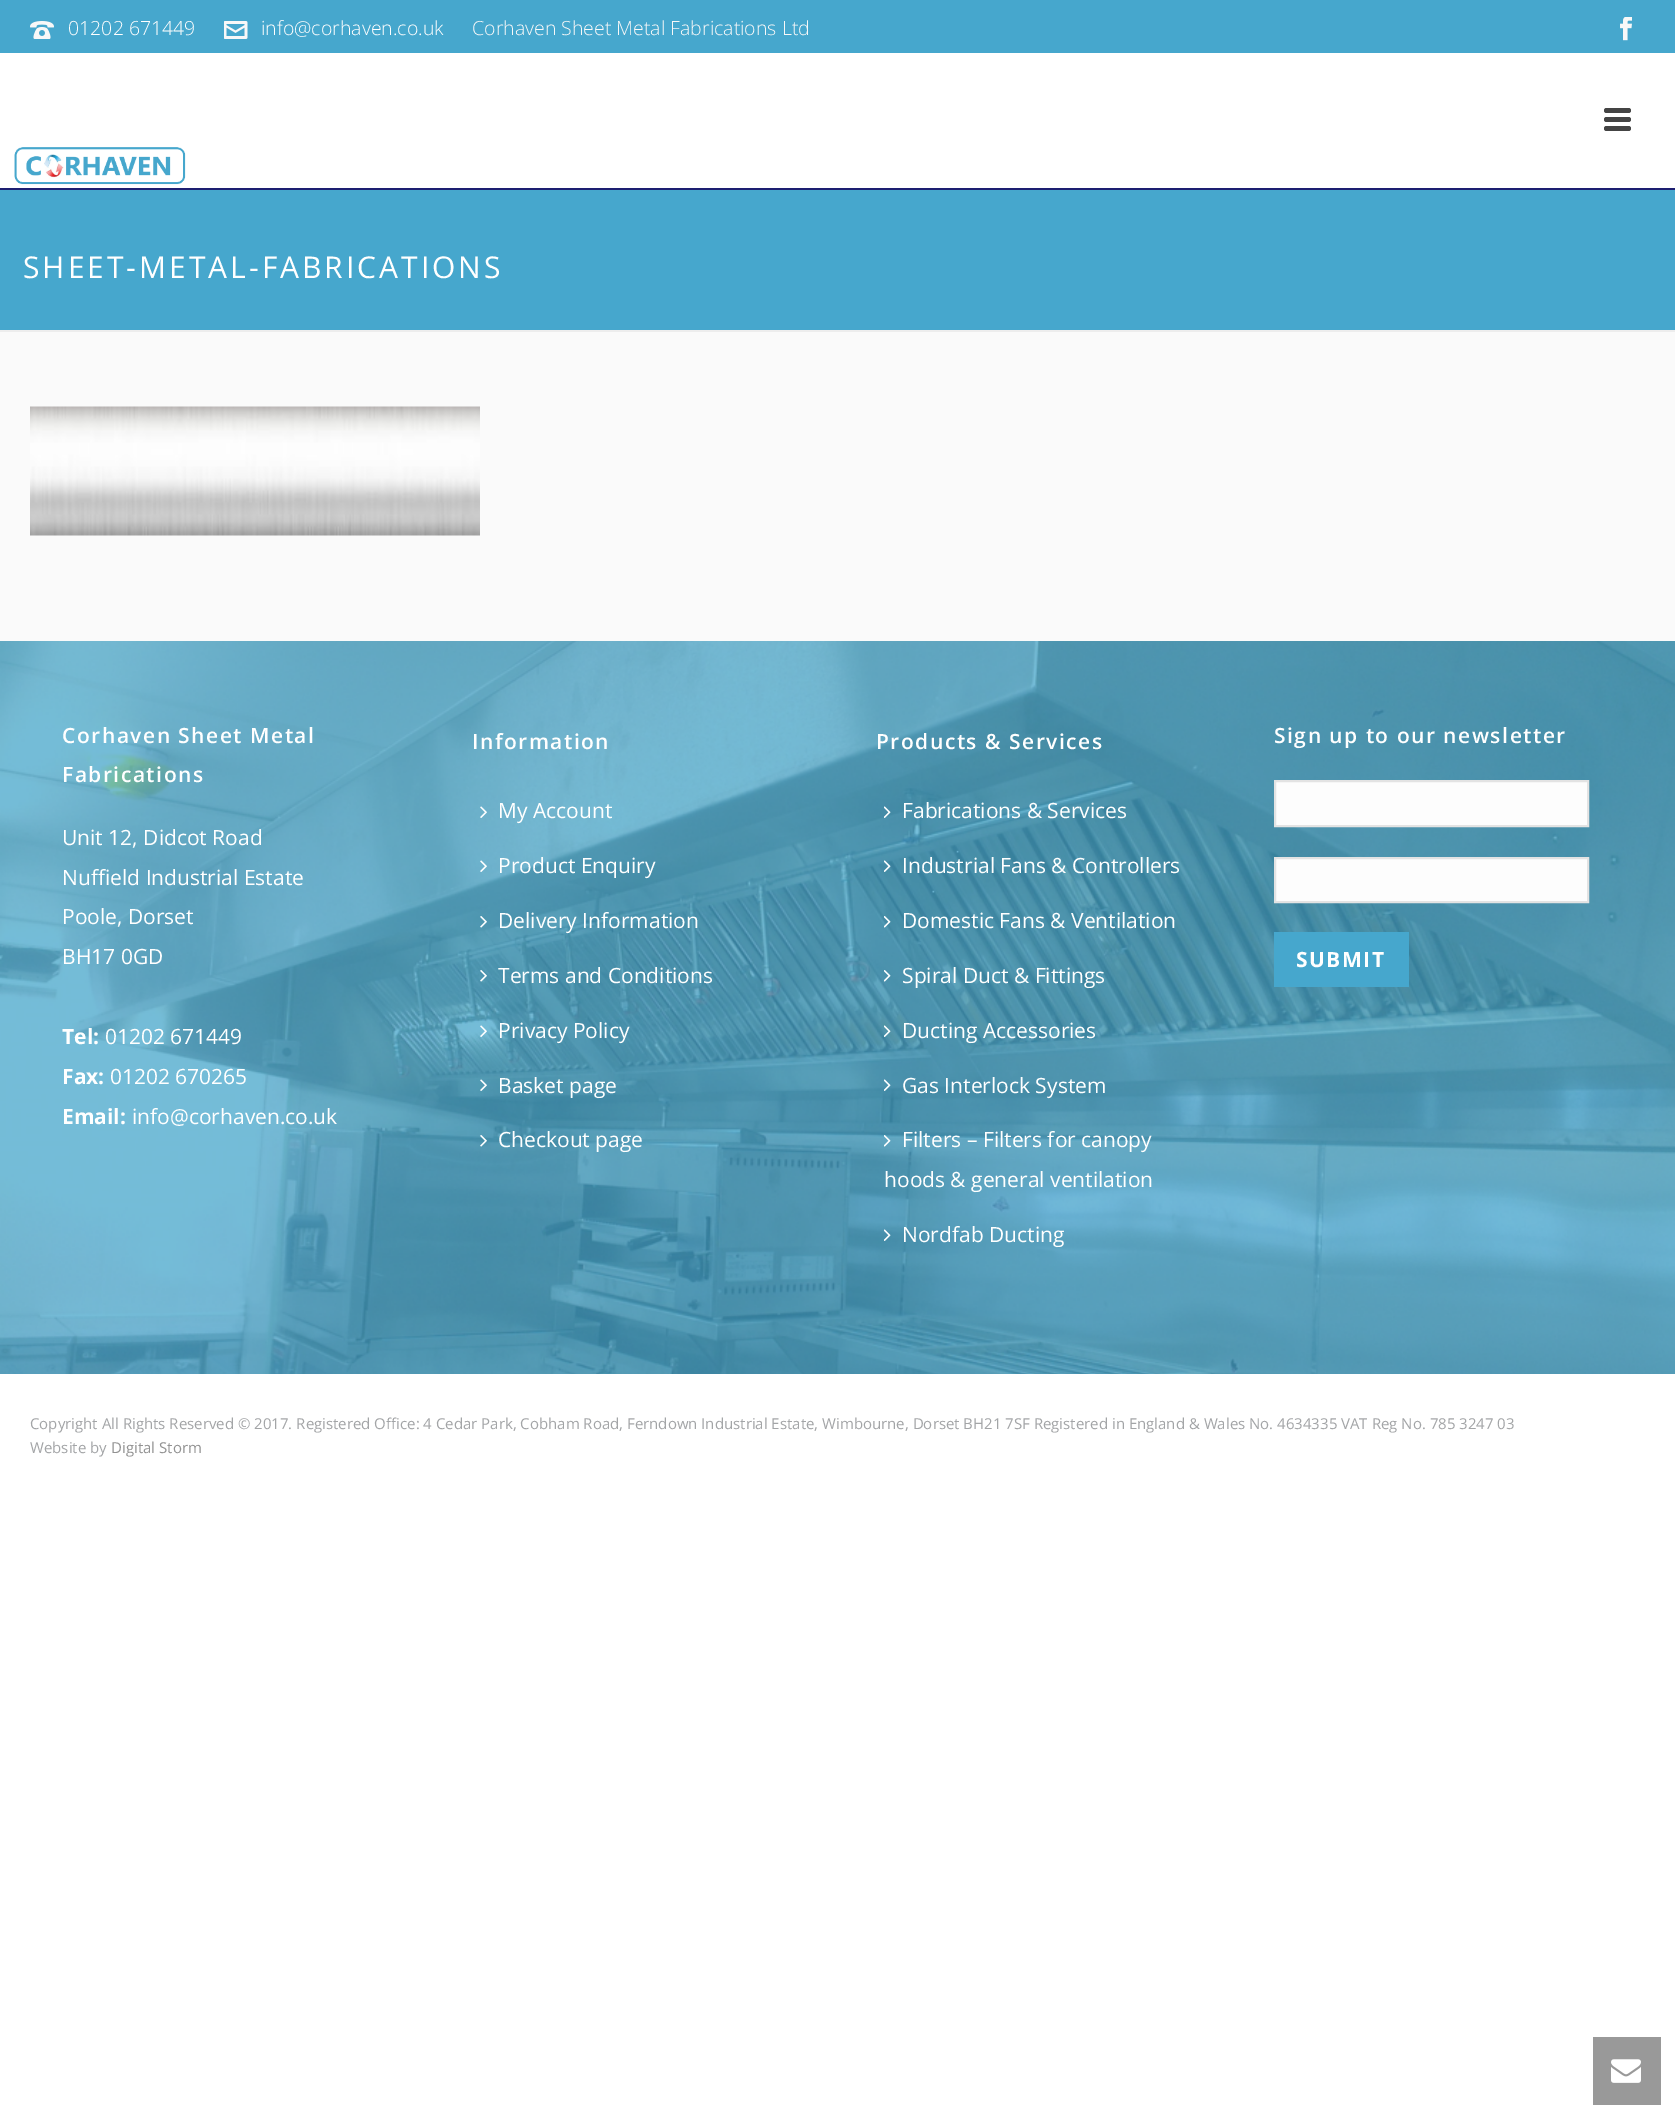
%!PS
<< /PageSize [1675 2126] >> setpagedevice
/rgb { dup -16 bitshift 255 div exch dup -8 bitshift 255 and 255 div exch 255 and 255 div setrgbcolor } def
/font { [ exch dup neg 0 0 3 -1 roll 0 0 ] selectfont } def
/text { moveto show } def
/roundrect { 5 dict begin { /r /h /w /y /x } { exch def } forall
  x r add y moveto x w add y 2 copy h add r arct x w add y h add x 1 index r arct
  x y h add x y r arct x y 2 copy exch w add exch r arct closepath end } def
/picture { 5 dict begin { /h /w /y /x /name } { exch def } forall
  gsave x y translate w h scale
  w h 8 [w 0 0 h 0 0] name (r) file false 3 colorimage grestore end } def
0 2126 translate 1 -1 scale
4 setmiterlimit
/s1 { /OpenSans-Light 19.5 font 16#FFFFFF rgb } def
/s2 { /OpenSans-Light 19.5 font 16#F8F8F8 rgb } def
/s3 { /OpenSans-Regular 21 font 16#FFFFFF rgb } def
/s4 { /OpenSans-Bold 21 font 16#FFFFFF rgb } def
/s5 { /OpenSans-Regular 15 font 16#A3A5A7 rgb } def
/s6 { /OpenSans-Regular 15 font 16#929292 rgb } def
16#FFFFFF rgb
0 0 1675 2126 rectfill
16#46A7CD rgb
0 0 1675 330 rectfill
16#EDEDED rgb
0 330 1675 2 rectfill
16#1D1F71 rgb
0 188 1675 2 rectfill
(pic1.raw) 30 21 24 18 picture
s1
(01202 671449) 68 35 text
(pic2.raw) 224 21 24 18 picture
(info@corhaven.co.uk) 261 35 text
s2
(Corhaven Sheet Metal Fabrications Ltd) 472 35 text
(pic3.raw) 1620 17 12 24 picture
16#FFFFFF rgb
0 53 1675 135 rectfill
16#444444 rgb
1604 108 27 5 2.5 roundrect fill
1604 117 27 5 2.5 roundrect fill
1604 126 27 5 2.5 roundrect fill
(pic4.raw) 14 147 172 38 picture
/OpenSans-Regular 30 font
16#FFFFFF rgb
23 278 moveto 3 0 (SHEET-METAL-FABRICATIONS) ashow
16#FAFAFA rgb
0 332 1675 309 rectfill
(pic5.raw) 30 406 450 130 picture
(pic6.raw) 0 641 1675 733 picture
/OpenSans-SemiBold 21 font
16#FFFFFF rgb
62 743 moveto 1.5 0 (Corhaven Sheet Metal) ashow
62 782 moveto 1.5 0 (Fabrications) ashow
s3
(Unit 12, Didcot Road) 62 845 text
(Nuffield Industrial Estate) 62 885 text
(Poole, Dorset) 62 924 text
(BH17 0GD) 62 964 text
s4
(Tel:) 62 1044 text
s3
(01202 671449) 105 1044 text
s4
(Fax:) 62 1084 text
s3
(01202 670265) 110 1084 text
s4
(Email:) 62 1124 text
s3
(info@corhaven.co.uk) 132 1124 text
/OpenSans-SemiBold 21 font
472 749 moveto 1.5 0 (Information) ashow
(pic7.raw) 480 806 7 12 picture
s3
(My Account) 498 818 text
(pic8.raw) 480 860 7 12 picture
(Product Enquiry) 498 873 text
(pic9.raw) 480 916 7 12 picture
(Delivery Information) 498 928 text
(pic10.raw) 480 970 7 12 picture
(Terms and Conditions) 498 983 text
(pic11.raw) 480 1025 7 12 picture
(Privacy Policy) 498 1038 text
(pic12.raw) 480 1079 7 12 picture
(Basket page) 498 1093 text
(pic13.raw) 480 1135 7 12 picture
(Checkout page) 498 1147 text
/OpenSans-SemiBold 21 font
876 749 moveto 1.5 0 (Products & Services) ashow
(pic14.raw) 884 806 7 12 picture
s3
(Fabrications & Services) 902 818 text
(pic15.raw) 884 860 7 12 picture
(Industrial Fans & Controllers) 902 873 text
(pic16.raw) 884 916 7 12 picture
(Domestic Fans & Ventilation) 902 928 text
(pic17.raw) 884 970 7 12 picture
(Spiral Duct & Fittings) 902 983 text
(pic18.raw) 884 1025 7 12 picture
(Ducting Accessories) 902 1038 text
(pic19.raw) 884 1079 7 12 picture
(Gas Interlock System) 902 1093 text
(pic20.raw) 884 1135 7 12 picture
(Filters – Filters for canopy) 902 1147 text
(hoods & general ventilation) 884 1187 text
(pic21.raw) 884 1229 7 12 picture
(Nordfab Ducting) 902 1242 text
/OpenSans-SemiBold 21 font
1274 743 moveto 1.5 0 (Sign up to our newsletter) ashow
16#FDFDFD rgb
1275 781 moveto 1588 781 lineto 1588 826 lineto 1275 826 lineto closepath gsave fill grestore
16#E3E3E3 rgb
2 setlinewidth
stroke
16#FDFDFD rgb
1275 858 moveto 1588 858 lineto 1588 902 lineto 1275 902 lineto closepath gsave fill grestore
16#E3E3E3 rgb
stroke
16#46A7CD rgb
1274 932 135 55 rectfill
/OpenSans-Bold 21 font
16#FFFFFF rgb
1296 967 moveto 1.5 0 (SUBMIT) ashow
s5
(Copyright All Rights Reserved © 2017. Registered Office: 4 Cedar Park, Cobham Road, Ferndown Industrial Estate, Wimbourne, Dorset BH21 7SF Registered in England & Wales No. 4634335 VAT Reg No. 785 3247 03) 30 1429 text
(Website by) 30 1453 text
s6
(Digital Storm) 111 1453 text
16#999999 rgb
1593 2037 68 68 rectfill
(pic22.raw) 1611 2059 30 24 picture
showpage
